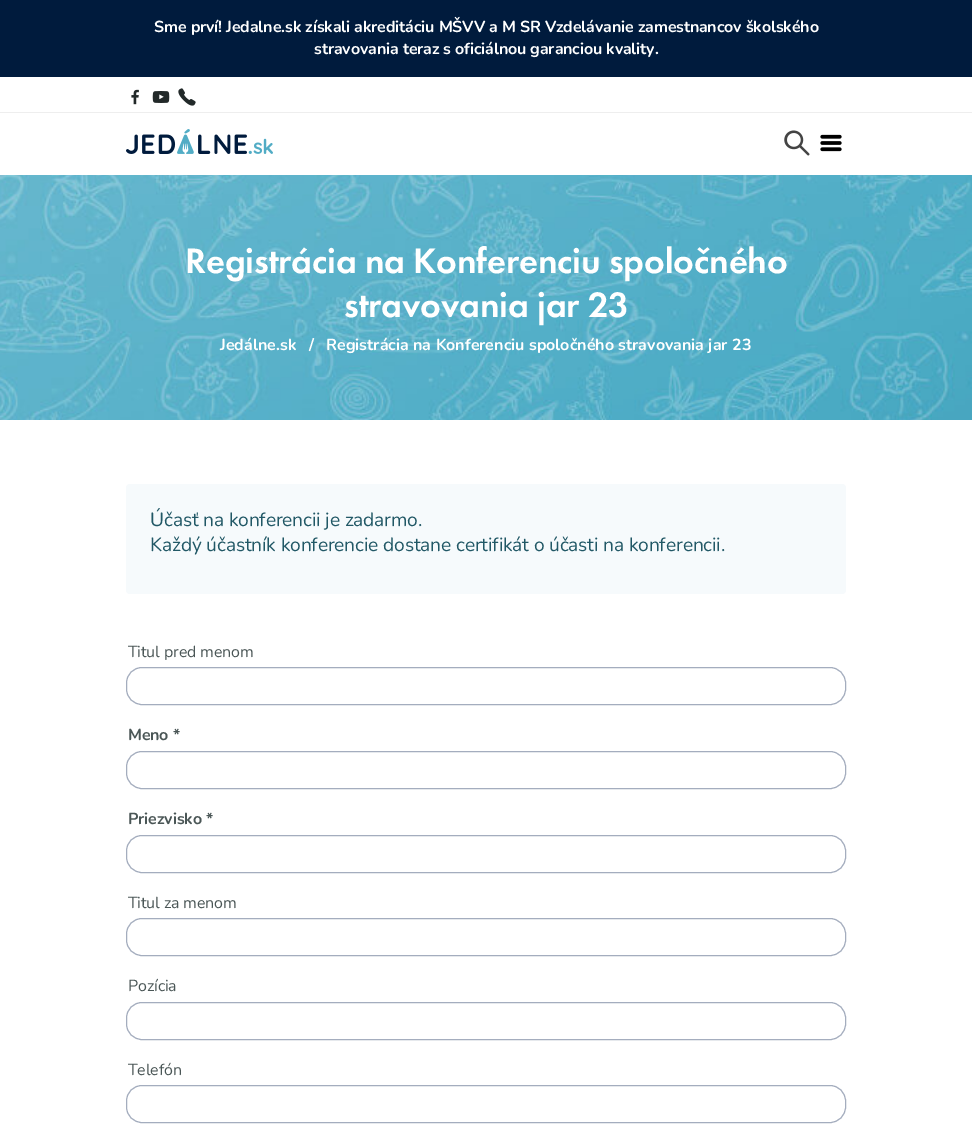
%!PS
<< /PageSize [972 1143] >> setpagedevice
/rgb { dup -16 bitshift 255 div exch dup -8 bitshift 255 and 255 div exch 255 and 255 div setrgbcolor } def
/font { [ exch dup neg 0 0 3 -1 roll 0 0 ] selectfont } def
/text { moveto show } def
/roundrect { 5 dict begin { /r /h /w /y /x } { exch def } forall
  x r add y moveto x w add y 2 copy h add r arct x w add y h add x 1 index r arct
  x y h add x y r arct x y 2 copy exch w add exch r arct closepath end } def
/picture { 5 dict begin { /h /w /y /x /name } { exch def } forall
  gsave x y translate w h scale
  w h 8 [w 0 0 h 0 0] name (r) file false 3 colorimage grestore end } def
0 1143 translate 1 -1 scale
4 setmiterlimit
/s1 { /Nunito-ExtraLight 16 font 16#FFFFFF rgb } def
16#FFFFFF rgb
0 0 972 1143 rectfill
16#001B3D rgb
0 0 972 77 rectfill
/Nunito-ExtraLight 16 font
16#FFFFFF rgb
154 32 moveto -0.15 0 (Sme prví! Jedalne.sk získali akreditáciu MŠVV a M SR Vzdelávanie zamestnancov školského) ashow
314 54 moveto -0.15 0 (stravovania teraz s oficiálnou garanciou kvality.) ashow
16#EEEEEE rgb
0 112 972 1 rectfill
(pic1.raw) 131 89 8 16 picture
(pic2.raw) 152 91 18 12 picture
(pic3.raw) 178 88 18 18 picture
(pic4.raw) 126 129 147 25 picture
(pic5.raw) 784 130 26 26 picture
(pic6.raw) 820 134 22 18 picture
(pic7.raw) 0 175 972 245 picture
/FuturaPT-Medium 36.6 font
16#FFFFFF rgb
185 273 moveto -0.15 0 (Registrácia na Konferenciu spoločného) ashow
344 317 moveto -0.15 0 (stravovania jar 23) ashow
s1
(Jedálne.sk) 220 350 text
(/) 309 350 text
(Registrácia na Konferenciu spoločného stravovania jar 23) 326 350 text
16#F6FAFC rgb
126 484 720 110 4 roundrect fill
/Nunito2-ExtraLight 19.2 font
16#215866 rgb
150 526 moveto -0.15 0 (Účasť na konferencii je zadarmo.) ashow
150 551 moveto -0.15 0 (Každý účastník konferencie dostane certifikát o účasti na konferencii.) ashow
/Nunito2-ExtraLight 16 font
16#4A5656 rgb
128 657 moveto -0.15 0 (Titul pred menom) ashow
16#A4ADBE rgb
126.5 667.5 719 37 15.5 roundrect stroke
/Nunito-ExtraLight 16 font
16#4A5656 rgb
128 740 moveto -0.15 0 (Meno *) ashow
16#A4ADBE rgb
126.5 751.5 719 37 15.5 roundrect stroke
16#4A5656 rgb
128 824 moveto -0.15 0 (Priezvisko *) ashow
16#A4ADBE rgb
126.5 835.5 719 37 15.5 roundrect stroke
/Nunito2-ExtraLight 16 font
16#4A5656 rgb
128 908 moveto -0.15 0 (Titul za menom) ashow
16#A4ADBE rgb
126.5 918.5 719 37 15.5 roundrect stroke
16#4A5656 rgb
128 991 moveto -0.15 0 (Pozícia) ashow
16#A4ADBE rgb
126.5 1002.5 719 37 15.5 roundrect stroke
16#4A5656 rgb
128 1075 moveto -0.15 0 (Telefón) ashow
16#A4ADBE rgb
126.5 1085.5 719 37 15.5 roundrect stroke
showpage
